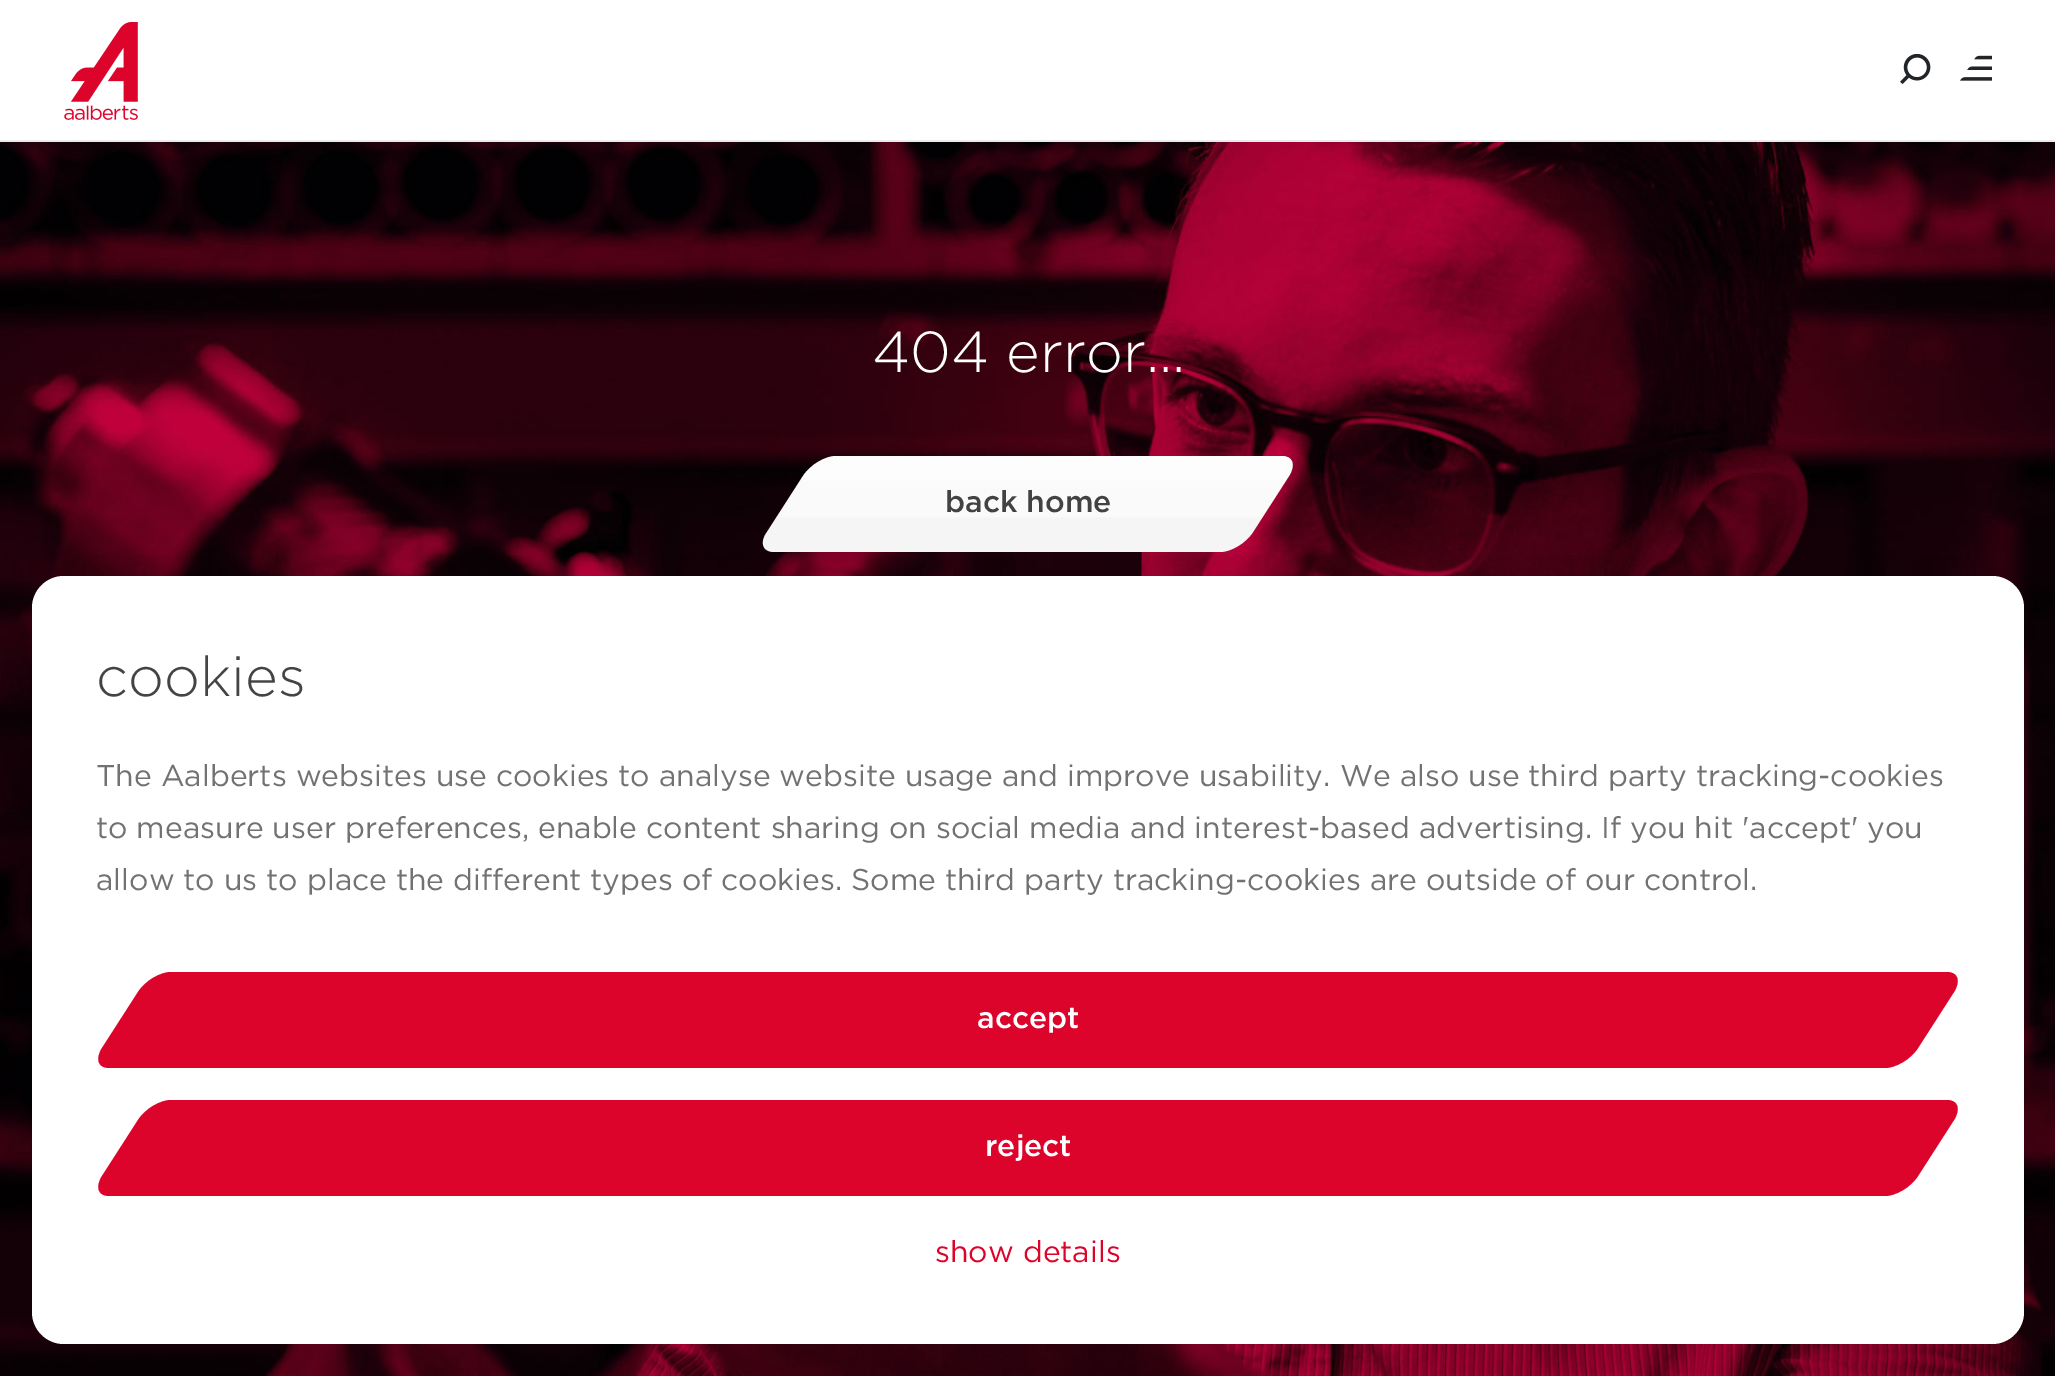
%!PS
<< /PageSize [2055 1376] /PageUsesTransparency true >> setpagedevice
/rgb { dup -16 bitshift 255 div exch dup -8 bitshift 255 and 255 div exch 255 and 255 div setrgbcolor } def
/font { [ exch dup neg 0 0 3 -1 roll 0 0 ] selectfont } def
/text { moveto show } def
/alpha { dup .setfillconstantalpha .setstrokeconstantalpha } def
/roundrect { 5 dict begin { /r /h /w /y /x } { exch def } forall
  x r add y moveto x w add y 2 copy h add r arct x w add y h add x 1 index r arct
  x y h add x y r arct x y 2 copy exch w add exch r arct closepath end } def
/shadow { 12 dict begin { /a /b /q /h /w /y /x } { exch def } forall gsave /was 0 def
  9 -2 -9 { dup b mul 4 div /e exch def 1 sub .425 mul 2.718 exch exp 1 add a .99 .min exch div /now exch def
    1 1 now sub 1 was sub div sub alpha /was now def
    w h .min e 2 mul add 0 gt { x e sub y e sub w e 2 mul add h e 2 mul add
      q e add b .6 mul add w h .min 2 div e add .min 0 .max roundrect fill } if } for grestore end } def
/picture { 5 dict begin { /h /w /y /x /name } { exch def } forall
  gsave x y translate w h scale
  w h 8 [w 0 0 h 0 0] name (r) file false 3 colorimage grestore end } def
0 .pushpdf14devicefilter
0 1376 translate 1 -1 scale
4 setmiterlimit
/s1 { /Gotham-Light 57.5 font 16#FFFFFF rgb } def
/s2 { /Gotham-Medium 30 font 16#444444 rgb } def
/s3 { /Gotham-Light 56 font 16#444444 rgb } def
/s4 { /Gotham-Regular 30 font 16#727272 rgb } def
/s5 { /Gotham-Medium 30 font 16#FFFFFF rgb } def
/s6 { /Gotham-Regular 30 font 16#DD042B rgb } def
16#FFFFFF rgb
0 0 2055 1376 rectfill
16#E9ECEF rgb
0 140 2055 2 rectfill
(pic1.raw) 64 22 74 98 picture
(pic2.raw) 1900 54 31 30 picture
(pic3.raw) 1960 55 32 26 picture
(pic4.raw) 0 142 2055 1234 picture
s1
(404 error...) 872 372 text
836 456 moveto 1282 456 lineto 1293 456 1296 465 1289 476 curveto 1253 532 lineto 1246 543 1231 552 1220 552 curveto 774 552 lineto 763 552 759 543 767 532 curveto 803 476 lineto 810 465 825 456 836 456 curveto closepath fill
s2
(back home) 945 512 text
16#000000 rgb
62 610 1932 708 2 74 0.25 shadow
16#FFFFFF rgb
32 576 1992 768 32 roundrect fill
s3
(cookies) 96 696 text
s4
(The Aalberts websites use cookies to analyse website usage and improve usability. We also use third party tracking-cookies) 96 786 text
(to measure user preferences, enable content sharing on social media and interest-based advertising. If you hit 'accept' you) 96 838 text
(allow to us to place the different types of cookies. Some third party tracking-cookies are outside of our control.) 96 890 text
16#DD042B rgb
171 972 moveto 1947 972 lineto 1958 972 1961 981 1954 992 curveto 1918 1048 lineto 1911 1059 1896 1068 1885 1068 curveto 109 1068 lineto 98 1068 95 1059 102 1048 curveto 138 992 lineto 145 981 160 972 171 972 curveto closepath fill
s5
(accept) 977 1028 text
16#DD042B rgb
171 1100 moveto 1947 1100 lineto 1958 1100 1961 1109 1954 1120 curveto 1918 1176 lineto 1911 1187 1896 1196 1885 1196 curveto 109 1196 lineto 98 1196 95 1187 102 1176 curveto 138 1120 lineto 145 1109 160 1100 171 1100 curveto closepath fill
s5
(reject) 985 1156 text
s6
(show details) 935 1262 text
.poppdf14devicefilter showpage
